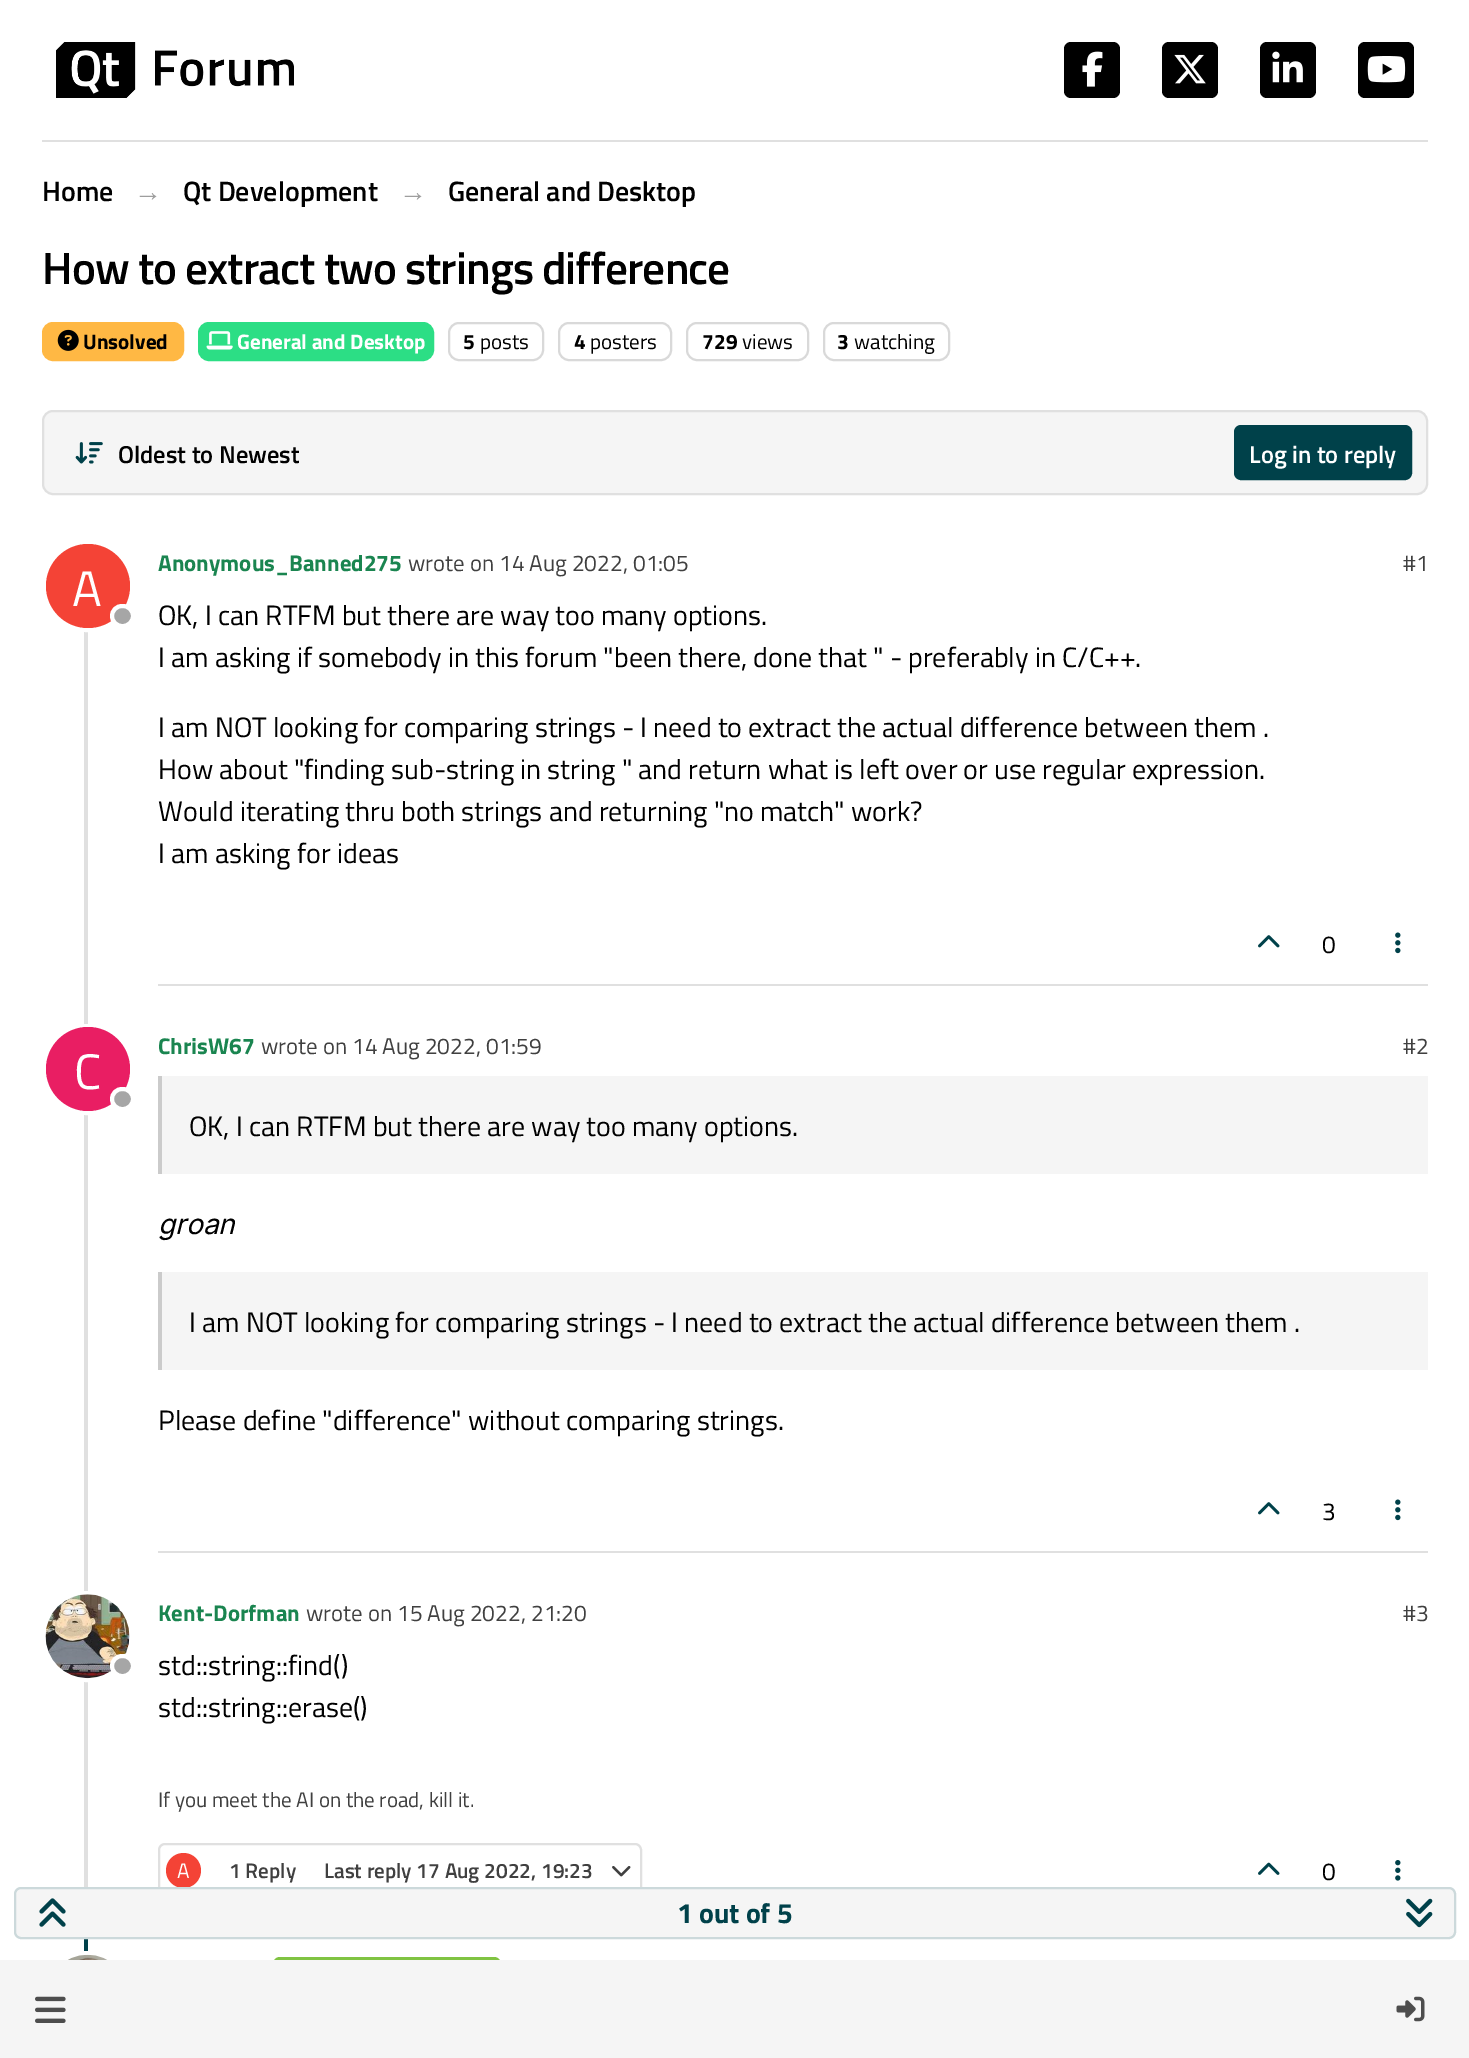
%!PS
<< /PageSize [1469 2058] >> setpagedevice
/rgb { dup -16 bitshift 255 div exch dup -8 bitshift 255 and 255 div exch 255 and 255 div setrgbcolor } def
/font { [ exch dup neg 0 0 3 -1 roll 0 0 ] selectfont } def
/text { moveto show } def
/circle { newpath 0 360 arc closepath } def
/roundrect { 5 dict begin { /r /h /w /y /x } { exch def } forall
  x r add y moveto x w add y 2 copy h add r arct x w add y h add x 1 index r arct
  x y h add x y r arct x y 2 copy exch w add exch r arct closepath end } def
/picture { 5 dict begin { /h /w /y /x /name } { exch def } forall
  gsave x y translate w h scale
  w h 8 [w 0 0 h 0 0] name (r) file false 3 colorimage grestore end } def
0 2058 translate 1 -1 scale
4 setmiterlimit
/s1 { /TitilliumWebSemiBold-SemiBold 28 font 16#000000 rgb } def
/s2 { /LiberationSans-Bold 28 font 16#9E9E9E rgb } def
/s3 { /TitilliumWeb-Bold 21 font 16#000000 rgb } def
/s4 { /TitilliumWeb-Bold 21 font 16#FFFFFF rgb } def
/s5 { /TitilliumWeb-Regular 21 font 16#000000 rgb } def
/s6 { /TitilliumWebSemiBold-SemiBold 24.5 font 16#000000 rgb } def
/s7 { /TitilliumWebSemiBold-SemiBold 24.5 font 16#FFFFFF rgb } def
/s8 { /TitilliumWeb-Regular 50 font 16#FFFFFF rgb } def
/s9 { /TitilliumWeb-Bold 22.75 font 16#1A8550 rgb } def
/s10 { /TitilliumWeb-Regular 22.75 font 16#404040 rgb } def
/s11 { /TitilliumWeb-Regular 28 font 16#000000 rgb } def
/s12 { /TitilliumWeb-Regular 24.5 font 16#000000 rgb } def
/s13 { /Inter-Italic 28 font 16#000000 rgb } def
/s14 { /TitilliumWeb-Regular 21 font 16#404040 rgb } def
/s15 { /TitilliumWeb-Regular 21 font 16#FFFFFF rgb } def
/s16 { /TitilliumWebSemiBold-SemiBold 21 font 16#404040 rgb } def
/s17 { /TitilliumWeb-Bold 28 font 16#00414A rgb } def
16#FFFFFF rgb
0 0 1469 2058 rectfill
16#E0E0E0 rgb
42 140 1386 2 rectfill
(pic1.raw) 56 42 238 56 picture
16#000000 rgb
1064 42 56 56 7 roundrect fill
(pic2.raw) 1082 51 21 36 picture
1162 42 56 56 7 roundrect fill
(pic3.raw) 1174 54 32 30 picture
1260 42 56 56 7 roundrect fill
(pic4.raw) 1272 51 31 32 picture
1358 42 56 56 7 roundrect fill
(pic5.raw) 1367 56 39 27 picture
s1
(Home) 42 201 text
s2
(→) 134 201 text
s1
(Qt Development) 183 201 text
s2
(→) 399 201 text
s1
(General and Desktop) 448 201 text
/TitilliumWebSemiBold-SemiBold 45.25 font
42 284 moveto -0.9 0 (How to extract two strings difference) ashow
16#FFB844 rgb
43 323 140 37 10 roundrect gsave fill grestore
2 setlinewidth
stroke
(pic6.raw) 57 329 22 22 picture
s3
(Unsolved) 83 349 text
16#2CDE85 rgb
199 323 234 37 10 roundrect gsave fill grestore
stroke
(pic7.raw) 206 331 27 19 picture
s4
(General and Desktop) 237 349 text
16#D9D9D9 rgb
449 323 94 37 10 roundrect stroke
s3
(5) 463 349 text
s5
(posts) 480 349 text
16#D9D9D9 rgb
559 323 112 37 10 roundrect stroke
s3
(4) 574 349 text
s5
(posters) 590 349 text
16#D9D9D9 rgb
687 323 121 37 10 roundrect stroke
s3
(729) 702 349 text
s5
(views) 742 349 text
16#D9D9D9 rgb
824 323 125 37 10 roundrect stroke
s3
(3) 837 349 text
s5
(watching) 854 349 text
16#F5F5F5 rgb
43 411 1384 83 10 roundrect gsave fill grestore
16#E0E0E0 rgb
stroke
(pic8.raw) 75 442 28 22 picture
gsave
119 434 180 37 rectclip
s6
(Oldest to Newest) 118 463 text
grestore
16#00414A rgb
1235 426 176 53 6 roundrect gsave fill grestore
stroke
s7
(Log in to reply) 1249 463 text
16#E0E0E0 rgb
84 627 4 1260 rectfill
16#FFFFFF rgb
4 setlinewidth
87.5 586.5 43.5 circle stroke
16#F44336 rgb
88 586 42 circle fill
s8
(A) 72 606 text
16#A6A6A6 rgb
112 606 21 20 10 roundrect gsave fill grestore
16#FFFFFF rgb
stroke
s9
(Anonymous_Banned275) 158 571 text
s10
(wrote on 14 Aug 2022, 01:05) 408 571 text
(#1) 1403 571 text
s11
(OK, I can RTFM but there are way too many options.) 158 625 text
(I am asking if somebody in this forum "been there, done that " - preferably in C/C++.) 158 667 text
(I am NOT looking for comparing strings - I need to extract the actual difference between them .) 158 737 text
(How about "finding sub-string in string " and return what is left over or use regular expression.) 158 779 text
(Would iterating thru both strings and returning "no match" work?) 158 821 text
(I am asking for ideas) 158 863 text
16#E0E0E0 rgb
158 984 1270 2 rectfill
(pic9.raw) 1258 935 22 13 picture
s12
(0) 1322 953 text
(pic10.raw) 1395 932 6 22 picture
16#FFFFFF rgb
87.5 1069.5 43.5 circle stroke
16#E91E63 rgb
88 1069 42 circle fill
s8
(C) 74 1089 text
16#A6A6A6 rgb
112 1089 21 20 10 roundrect gsave fill grestore
16#FFFFFF rgb
stroke
s9
(ChrisW67) 158 1054 text
s10
(wrote on 14 Aug 2022, 01:59) 261 1054 text
(#2) 1403 1054 text
16#F5F5F5 rgb
162 1076 1266 98 rectfill
16#CBCBCB rgb
158 1076 4 98 rectfill
s11
(OK, I can RTFM but there are way too many options.) 189 1136 text
s13
(groan) 158 1234 text
16#F5F5F5 rgb
162 1272 1266 98 rectfill
16#CBCBCB rgb
158 1272 4 98 rectfill
s11
(I am NOT looking for comparing strings - I need to extract the actual difference between them .) 189 1332 text
(Please define "difference" without comparing strings.) 158 1430 text
16#E0E0E0 rgb
158 1551 1270 2 rectfill
(pic9.raw) 1258 1502 22 13 picture
s12
(3) 1322 1520 text
(pic10.raw) 1395 1499 6 22 picture
16#FFFFFF rgb
87.5 1636.5 43.5 circle stroke
(pic11.raw) 45 1594 85 85 picture
16#A6A6A6 rgb
112 1656 21 20 10 roundrect gsave fill grestore
16#FFFFFF rgb
stroke
s9
(Kent-Dorfman) 158 1621 text
s10
(wrote on 15 Aug 2022, 21:20) 306 1621 text
(#3) 1403 1621 text
s11
(std::string::find\(\)) 158 1675 text
(std::string::erase\(\)) 158 1717 text
s14
(If you meet the AI on the road, kill it.) 158 1807 text
16#E0E0E0 rgb
2 setlinewidth
159 1844 482 52 6 roundrect stroke
16#F44336 rgb
183.5 1870.5 17.5 circle fill
s15
(A) 177 1878 text
s16
(1 Reply) 229 1878 text
(Last reply 17 Aug 2022, 19:23) 324 1878 text
(pic12.raw) 612 1866 19 11 picture
(pic13.raw) 1258 1862 22 13 picture
s12
(0) 1322 1880 text
(pic14.raw) 1395 1860 6 21 picture
16#00414A rgb
84 1939 4 13 rectfill
16#FFFFFF rgb
4 setlinewidth
87.5 1996.5 43.5 circle stroke
(pic15.raw) 67 1954 41 6 picture
16#80C342 rgb
273 1957 228 33 7 roundrect fill
16#F5F5F5 rgb
15 1888 1440 50 6 roundrect gsave fill grestore
16#CCD9DB rgb
2 setlinewidth
stroke
(pic16.raw) 39 1898 27 29 picture
s17
(1 out of 5) 677 1923 text
(pic17.raw) 1406 1898 27 30 picture
16#F5F5F5 rgb
0 1960 1469 98 rectfill
(pic18.raw) 35 1996 31 27 picture
(pic19.raw) 1396 1996 29 26 picture
showpage
